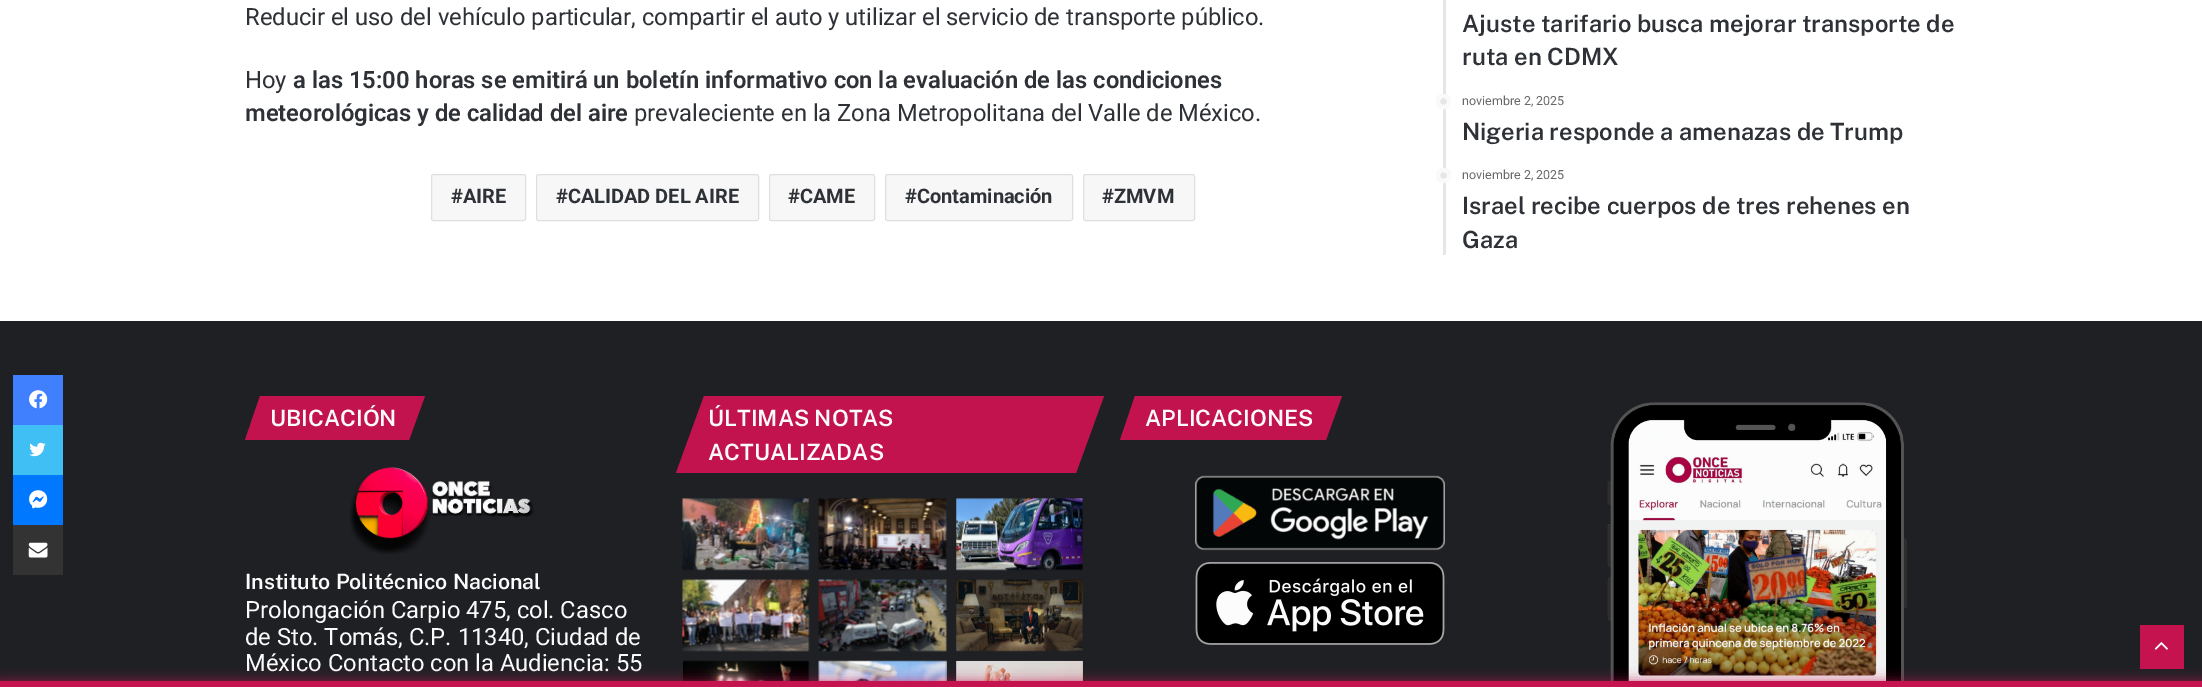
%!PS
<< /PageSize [2202 687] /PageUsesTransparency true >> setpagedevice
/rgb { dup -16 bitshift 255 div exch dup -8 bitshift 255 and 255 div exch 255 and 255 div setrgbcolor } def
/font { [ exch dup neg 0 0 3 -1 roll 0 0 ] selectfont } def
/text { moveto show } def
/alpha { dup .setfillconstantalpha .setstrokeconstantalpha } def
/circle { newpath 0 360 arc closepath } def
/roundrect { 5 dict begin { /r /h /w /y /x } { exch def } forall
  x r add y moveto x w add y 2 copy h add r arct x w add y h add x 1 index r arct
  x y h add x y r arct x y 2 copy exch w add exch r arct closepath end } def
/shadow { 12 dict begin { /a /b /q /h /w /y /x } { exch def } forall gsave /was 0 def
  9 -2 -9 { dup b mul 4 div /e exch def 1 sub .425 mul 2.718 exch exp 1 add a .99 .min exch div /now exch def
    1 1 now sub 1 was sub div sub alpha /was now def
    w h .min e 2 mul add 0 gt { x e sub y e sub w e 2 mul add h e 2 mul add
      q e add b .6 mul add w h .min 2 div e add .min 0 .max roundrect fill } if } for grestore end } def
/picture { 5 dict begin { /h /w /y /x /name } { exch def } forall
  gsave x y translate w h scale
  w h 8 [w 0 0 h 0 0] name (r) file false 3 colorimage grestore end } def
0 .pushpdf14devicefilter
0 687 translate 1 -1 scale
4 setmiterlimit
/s1 { /Roboto-Regular 23.75 font 16#2E3136 rgb } def
/s2 { /Roboto-SemiBold 23.75 font 16#2E3136 rgb } def
/s3 { /Roboto-Bold 20 font 16#2E3136 rgb } def
/s4 { /PublicSans-SemiBold 23.75 font 16#2E3136 rgb } def
/s5 { /Roboto-Regular 12.5 font 16#686868 rgb } def
/s6 { /PublicSans-SemiBold 22.5 font 16#FBFBFB rgb } def
/s7 { /PublicSans-SemiBold 21.25 font 16#FBFBFB rgb } def
/s8 { /Roboto-Regular 23.75 font 16#FBFBFB rgb } def
16#FFFFFF rgb
0 0 2202 687 rectfill
s1
(Reducir el uso del vehículo particular, compartir el auto y utilizar el servicio de transporte público.) 245 25 text
(Hoy) 245 88 text
s2
(a las 15:00 horas se emitirá un boletín informativo con la evaluación de las condiciones) 293 88 text
(meteorológicas y de calidad del aire) 245 121 text
s1
(prevaleciente en la Zona Metropolitana del Valle de México.) 634 121 text
16#F7F7F7 rgb
431.5 174.5 94 46 2 roundrect gsave fill grestore
16#DFDFDF rgb
stroke
s3
(#AIRE) 451 203 text
16#F7F7F7 rgb
536.5 174.5 222 46 2 roundrect gsave fill grestore
16#DFDFDF rgb
stroke
s3
(#CALIDAD DEL AIRE) 556 203 text
16#F7F7F7 rgb
769.5 174.5 105 46 2 roundrect gsave fill grestore
16#DFDFDF rgb
stroke
s3
(#CAME) 788 203 text
16#F7F7F7 rgb
885.5 174.5 187 46 2 roundrect gsave fill grestore
16#DFDFDF rgb
stroke
s3
(#Contaminación) 905 203 text
16#F7F7F7 rgb
1083.5 174.5 111 46 2 roundrect gsave fill grestore
16#DFDFDF rgb
stroke
s3
(#ZMVM) 1102 203 text
16#E6E6E6 rgb
1443 0 3 255 rectfill
s4
(Ajuste tarifario busca mejorar transporte de) 1462 32 text
(ruta en CDMX) 1462 65 text
16#E6E6E6 rgb
1443.5 101.5 7.5 circle fill
0.8 alpha
16#FFFFFF rgb
4 setlinewidth
1443.5 101.5 5.5 circle stroke
1 alpha
s5
(noviembre 2, 2025) 1462 105 text
s4
(Nigeria responde a amenazas de Trump) 1462 140 text
16#E6E6E6 rgb
1443.5 175.5 7.5 circle fill
0.8 alpha
16#FFFFFF rgb
1443.5 175.5 5.5 circle stroke
1 alpha
s5
(noviembre 2, 2025) 1462 179 text
s4
(Israel recibe cuerpos de tres rehenes en) 1462 214 text
(Gaza) 1462 248 text
16#1F2024 rgb
0 321 2202 360 rectfill
16#4080FF rgb
13 375 50 50 rectfill
(pic1.raw) 29 390 19 19 picture
16#40BFF5 rgb
13 425 50 50 rectfill
(pic2.raw) 29 442 17 15 picture
16#0078FF rgb
13 475 50 50 rectfill
(pic3.raw) 29 490 19 19 picture
16#333333 rgb
13 525 50 50 rectfill
(pic4.raw) 28 542 20 16 picture
16#C2134F rgb
260 396 moveto 425 396 lineto 409 440 lineto 245 440 lineto closepath fill
s6
(UBICACIÓN) 270 426 text
(pic5.raw) 350 467 184 87 picture
s7
(Instituto Politécnico Nacional) 245 589 text
s8
(Prolongación Carpio 475, col. Casco) 245 618 text
(de Sto. Tomás, C.P. 11340, Ciudad de) 245 645 text
(México Contacto con la Audiencia: 55) 245 671 text
16#C2134F rgb
704 396 moveto 1104 396 lineto 1076 473 lineto 676 473 lineto closepath fill
s6
(ÚLTIMAS NOTAS) 708 426 text
(ACTUALIZADAS) 708 460 text
(pic6.raw) 682 498 128 73 picture
(pic7.raw) 818 498 129 73 picture
(pic8.raw) 956 498 127 73 picture
(pic9.raw) 682 579 128 73 picture
(pic10.raw) 818 579 129 73 picture
(pic11.raw) 956 579 127 73 picture
(pic12.raw) 683 660 127 21 picture
(pic13.raw) 818 660 129 21 picture
(pic14.raw) 956 660 127 21 picture
16#C2134F rgb
1135 396 moveto 1342 396 lineto 1326 440 lineto 1120 440 lineto closepath fill
s6
(APLICACIONES) 1145 426 text
(pic15.raw) 1195 475 250 76 picture
(pic16.raw) 1195 562 250 83 picture
(pic17.raw) 1607 402 300 279 picture
16#C51350 rgb
2140 625 44 44 rectfill
(pic18.raw) 2154 642 14 8 picture
0 681 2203 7 0 6 0.7 shadow
0 681 2202 6 rectfill
.poppdf14devicefilter showpage
